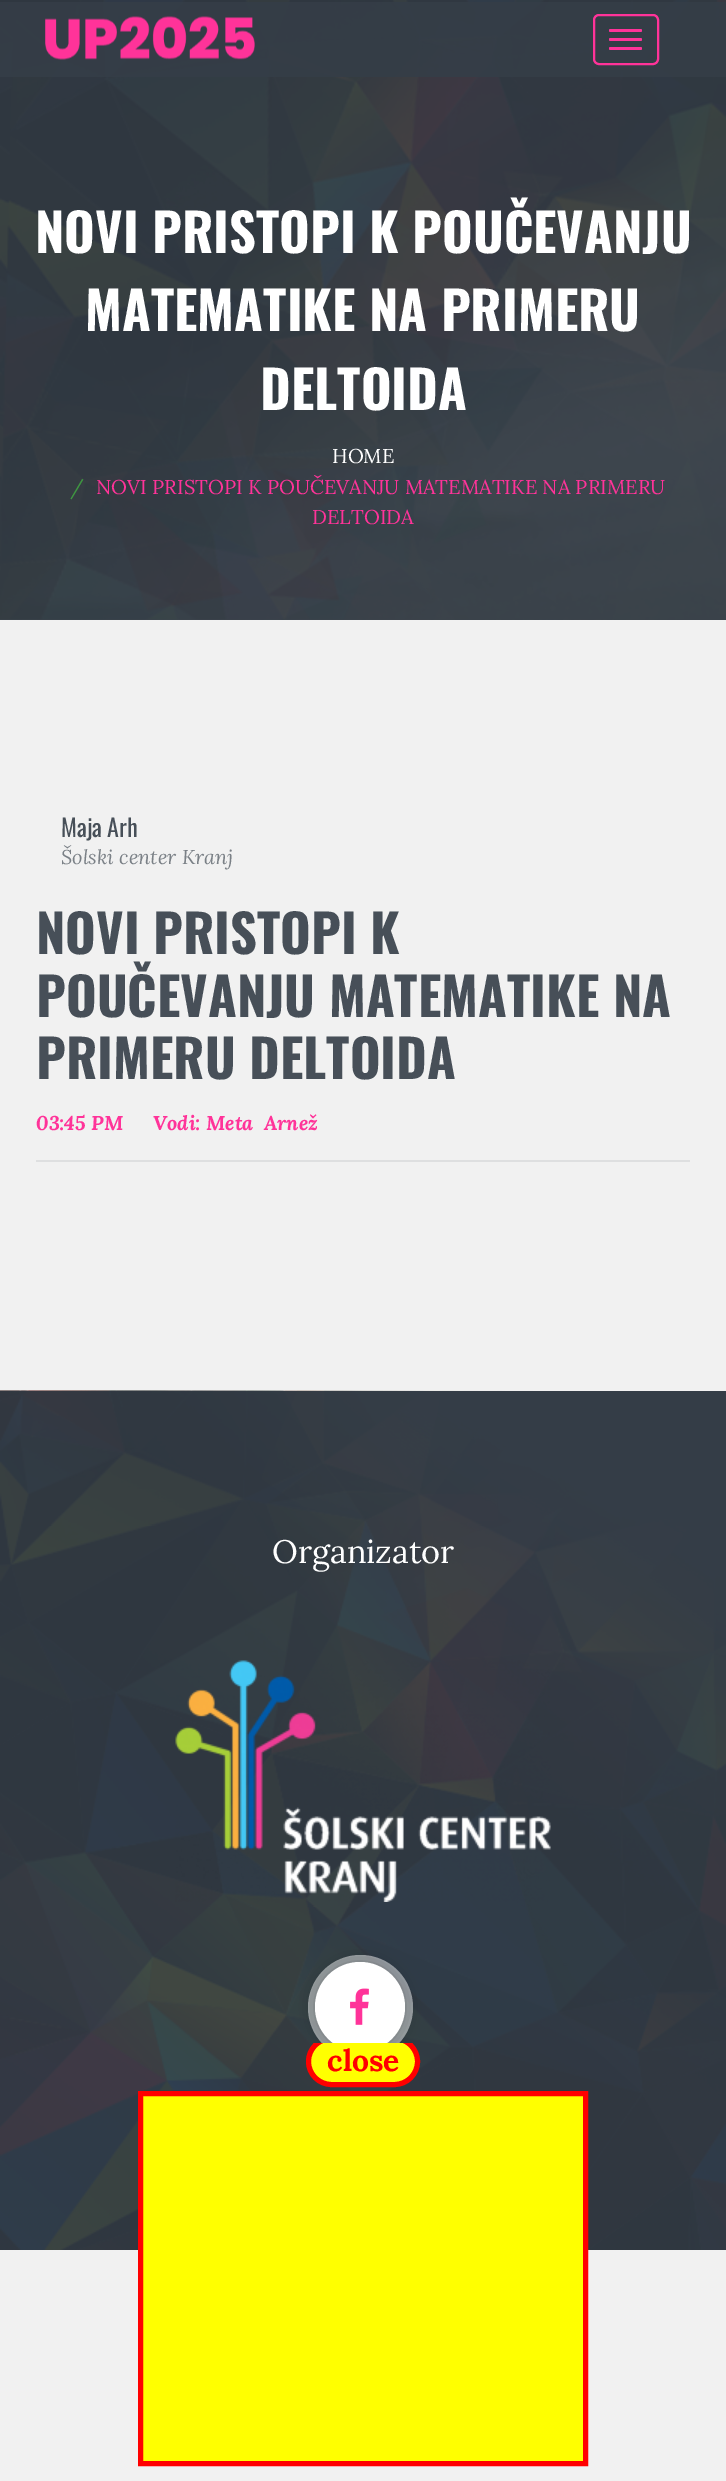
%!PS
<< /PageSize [726 2481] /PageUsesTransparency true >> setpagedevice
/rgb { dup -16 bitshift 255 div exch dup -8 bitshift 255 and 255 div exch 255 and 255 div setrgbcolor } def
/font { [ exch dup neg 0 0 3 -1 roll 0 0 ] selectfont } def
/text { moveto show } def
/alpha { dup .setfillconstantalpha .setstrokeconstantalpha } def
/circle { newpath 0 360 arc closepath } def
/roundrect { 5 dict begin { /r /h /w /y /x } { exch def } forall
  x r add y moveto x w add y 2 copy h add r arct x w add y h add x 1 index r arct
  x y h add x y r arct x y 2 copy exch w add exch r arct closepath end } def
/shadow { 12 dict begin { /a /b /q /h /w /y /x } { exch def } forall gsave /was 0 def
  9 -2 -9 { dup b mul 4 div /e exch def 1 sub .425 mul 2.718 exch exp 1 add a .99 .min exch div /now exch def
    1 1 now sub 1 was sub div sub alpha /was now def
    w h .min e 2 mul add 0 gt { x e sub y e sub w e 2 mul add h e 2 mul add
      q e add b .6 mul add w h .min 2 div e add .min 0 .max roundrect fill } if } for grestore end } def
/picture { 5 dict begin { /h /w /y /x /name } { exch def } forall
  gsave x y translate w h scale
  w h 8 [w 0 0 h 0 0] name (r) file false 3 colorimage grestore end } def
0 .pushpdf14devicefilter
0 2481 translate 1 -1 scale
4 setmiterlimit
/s1 { /Oswald-Bold 52.4 font 16#FFFFFF rgb } def
/s2 { /Lora-Regular 20 font 16#FFFFFF rgb } def
/s3 { /Lora-Regular 20 font 16#3E9641 rgb } def
/s4 { /Lora-Regular 20 font 16#FF3399 rgb } def
/s5 { /Oswald-Regular 24 font 16#474F58 rgb } def
/s6 { /Lora-Italic 20 font 16#7A8086 rgb } def
/s7 { /Oswald-Bold 52.4 font 16#474F58 rgb } def
/s8 { /Lora-BoldItalic 20 font 16#FF3399 rgb } def
/s9 { /Lora-Regular 32.5 font 16#FFFFFF rgb } def
/s10 { /Lora-Bold 30 font 16#FF0000 rgb } def
16#F1F1F1 rgb
0 0 726 2481 rectfill
(pic2.raw) 0 0 726 620 picture
(pic3.raw) 0 0 726 620 picture
0.9 alpha
16#343D47 rgb
0 2 726 75 rectfill
1 alpha
(pic1.raw) 45 16 210 44 picture
16#FF3399 rgb
2 setlinewidth
594 15 64 49 5 roundrect stroke
609 29 33 3 1.5 roundrect fill
609 38 33 3 1.5 roundrect fill
609 47 33 3 1.5 roundrect fill
s1
(NOVI PRISTOPI K POUČEVANJU) 35 253 text
(MATEMATIKE NA PRIMERU) 85 331 text
(DELTOIDA) 260 410 text
s2
(HOME) 332 463 text
s3
(/) 70 494 text
s4
(NOVI PRISTOPI K POUČEVANJU MATEMATIKE NA PRIMERU) 96 494 text
(DELTOIDA) 312 524 text
s5
(Maja Arh) 61 837 text
s6
(Šolski center Kranj) 61 864 text
16#DEDFE0 rgb
36 1160 654 2 rectfill
s7
(NOVI PRISTOPI K) 36 954 text
(POUČEVANJU MATEMATIKE NA) 36 1017 text
(PRIMERU DELTOIDA) 36 1079 text
s8
(03:45 PM) 36 1130 text
(Vodi: Meta  Arnež) 153 1130 text
16#343D47 rgb
0 1391 726 859 rectfill
(pic4.raw) 0 1390 726 860 picture
s9
(Organizator) 272 1563 text
(pic5.raw) 175 1660 376 242 picture
0.5 alpha
360.5 2007.5 52.5 circle fill
1 alpha
16#000000 rgb
315 1962 90 90 45 7.5 0.25 shadow
16#FFFFFF rgb
360 2007 45 circle fill
(pic6.raw) 350 1988 19 37 picture
gsave
0 2043 726 423 rectclip
16#FFFF00 rgb
308.5 2038.5 109 46 23 roundrect gsave fill grestore
16#FF0000 rgb
5 setlinewidth
stroke
grestore
s10
(close) 327 2071 text
16#FFFF00 rgb
140.5 2093.5 moveto 585.5 2093.5 lineto 585.5 2463.5 lineto 140.5 2463.5 lineto closepath gsave fill grestore
16#FF0000 rgb
5 setlinewidth
stroke
.poppdf14devicefilter showpage
